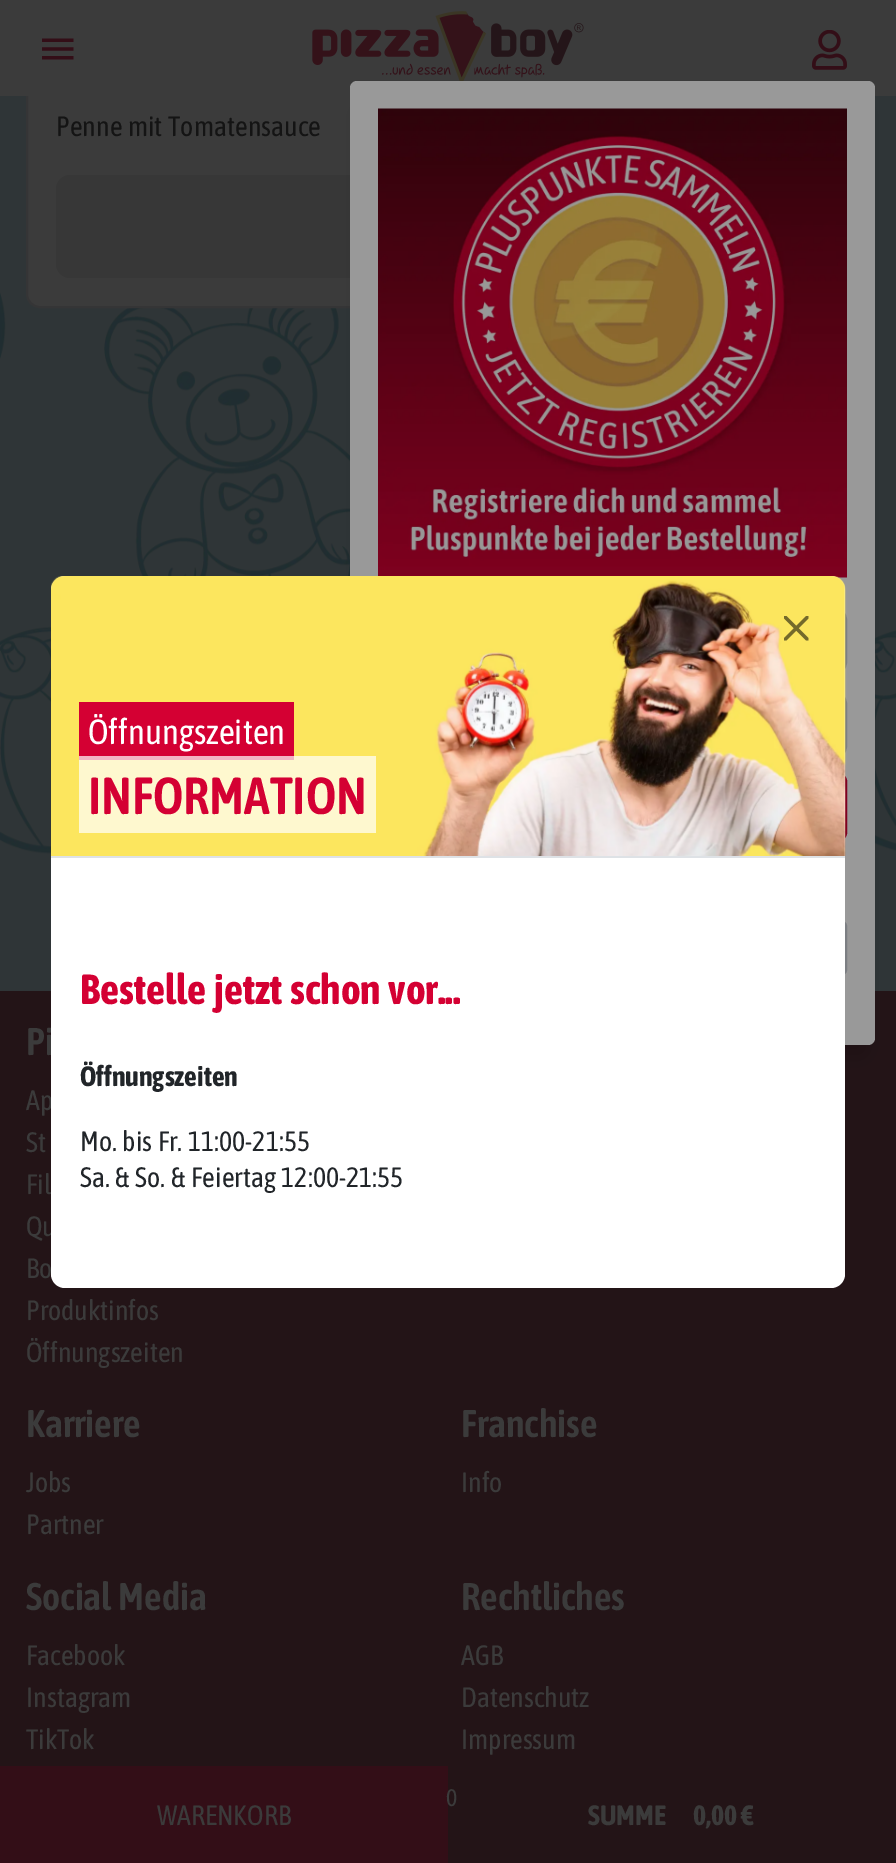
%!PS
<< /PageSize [896 1863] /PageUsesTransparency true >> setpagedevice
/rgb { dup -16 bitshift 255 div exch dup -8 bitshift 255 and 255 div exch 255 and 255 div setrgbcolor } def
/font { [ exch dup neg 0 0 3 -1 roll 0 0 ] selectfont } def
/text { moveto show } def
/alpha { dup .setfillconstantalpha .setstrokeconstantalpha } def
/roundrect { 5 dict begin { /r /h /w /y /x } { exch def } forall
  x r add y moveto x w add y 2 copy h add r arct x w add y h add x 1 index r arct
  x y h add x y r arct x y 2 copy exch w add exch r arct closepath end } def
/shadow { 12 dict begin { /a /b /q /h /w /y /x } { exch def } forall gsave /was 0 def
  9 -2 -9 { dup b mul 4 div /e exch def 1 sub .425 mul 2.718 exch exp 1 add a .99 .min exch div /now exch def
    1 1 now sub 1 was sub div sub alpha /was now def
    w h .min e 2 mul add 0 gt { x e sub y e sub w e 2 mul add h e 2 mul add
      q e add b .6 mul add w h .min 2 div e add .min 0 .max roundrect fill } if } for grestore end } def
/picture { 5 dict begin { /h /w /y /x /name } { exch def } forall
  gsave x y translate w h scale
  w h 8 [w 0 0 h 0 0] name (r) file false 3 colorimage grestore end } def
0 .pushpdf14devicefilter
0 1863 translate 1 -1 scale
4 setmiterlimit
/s1 { /AsapCondensed-SemiBold 38.5 font 16#3B3B3B rgb } def
/s2 { /AsapCondensed-Regular 28 font 16#3B3B3B rgb } def
/s3 { /AsapCondensed-Regular 24 font 16#3B3B3B rgb } def
/s4 { /AsapCondensed-Bold 28 font 16#3B3B3B rgb } def
/s5 { /AsapCondensed-Regular 35 font 16#FFFFFF rgb } def
/s6 { /AsapCondensed-SemiBold 52 font 16#D40033 rgb } def
/s7 { /AsapCondensed-Bold 28 font 16#212529 rgb } def
16#2F3537 rgb
0 0 896 1863 rectfill
(pic5.raw) 0 292 896 563 picture
16#3B3B3B rgb
27 26 842 281 13 roundrect gsave fill grestore
16#353536 rgb
2 setlinewidth
stroke
16#3B3B3B rgb
0 0 896 96 rectfill
(pic3.raw) 312 11 272 70 picture
16#373737 rgb
56 175 784 103 14 roundrect fill
16#231417 rgb
0 991 896 872 rectfill
16#000000 rgb
362 112 501 940 0 13 0.2 shadow
16#999999 rgb
350 81 525 964 7 roundrect fill
(pic1.raw) 378 108 469 470 picture
16#7C7F83 rgb
379 607 467 68 13 roundrect stroke
379 691 467 68 13 roundrect stroke
16#7F001F rgb
379 775 467 64 6 roundrect stroke
16#7C7F83 rgb
379 922 467 52 4 roundrect stroke
(pic2.raw) 42 38 32 22 picture
(pic4.raw) 812 30 35 40 picture
/AsapCondensed-Regular 28 font
16#141414 rgb
56 136 moveto 1.75 0 32 (Penne mit Tomatensauce) widthshow
s1
(Pi) 26 1055 text
s2
(Ap) 26 1110 text
(St) 26 1152 text
(Fil) 26 1194 text
(Qu) 26 1236 text
(Bo) 26 1278 text
(Produktinfos) 26 1320 text
(Öffnungszeiten) 26 1362 text
s1
(Karriere) 26 1437 text
s2
(Jobs) 26 1492 text
(Partner) 26 1534 text
s1
(Franchise) 461 1437 text
s2
(Info) 461 1492 text
/AsapCondensed-SemiBold 38.5 font
26 1610 moveto 1.75 0 32 (Social Media) widthshow
s2
(Facebook) 26 1665 text
(Instagram) 26 1707 text
(TikTok) 26 1749 text
s1
(Rechtliches) 461 1610 text
s2
(AGB) 461 1665 text
(Datenschutz) 461 1707 text
(Impressum) 461 1749 text
16#330E17 rgb
0 1766 448 97 rectfill
s3
(0) 446 1806 text
s2
(WARENKORB) 157 1825 text
s4
(SUMME) 588 1825 text
(0,00 €) 693 1825 text
16#FFFFFF rgb
51 576 794 712 14 roundrect fill
(pic7.raw) 51 576 795 280 picture
(pic6.raw) 784 616 25 25 picture
16#DEE2E6 rgb
51 856 794 2 rectfill
16#D40033 rgb
79 702 215 58 rectfill
s5
(Öffnungszeiten) 88 744 text
0.7 alpha
79 756 297 77 rectfill
1 alpha
s6
(INFORMATION) 88 814 text
/AsapCondensed-Bold 42 font
80 1004 moveto 2 0 32 (Bestelle jetzt schon vor...) widthshow
s7
(Öffnungszeiten) 80 1086 text
/AsapCondensed-Regular 28 font
80 1151 moveto 1.75 0 32 (Mo. bis Fr. 11:00-21:55) widthshow
80 1187 moveto 1.75 0 32 (Sa. & So. & Feiertag 12:00-21:55) widthshow
.poppdf14devicefilter showpage
